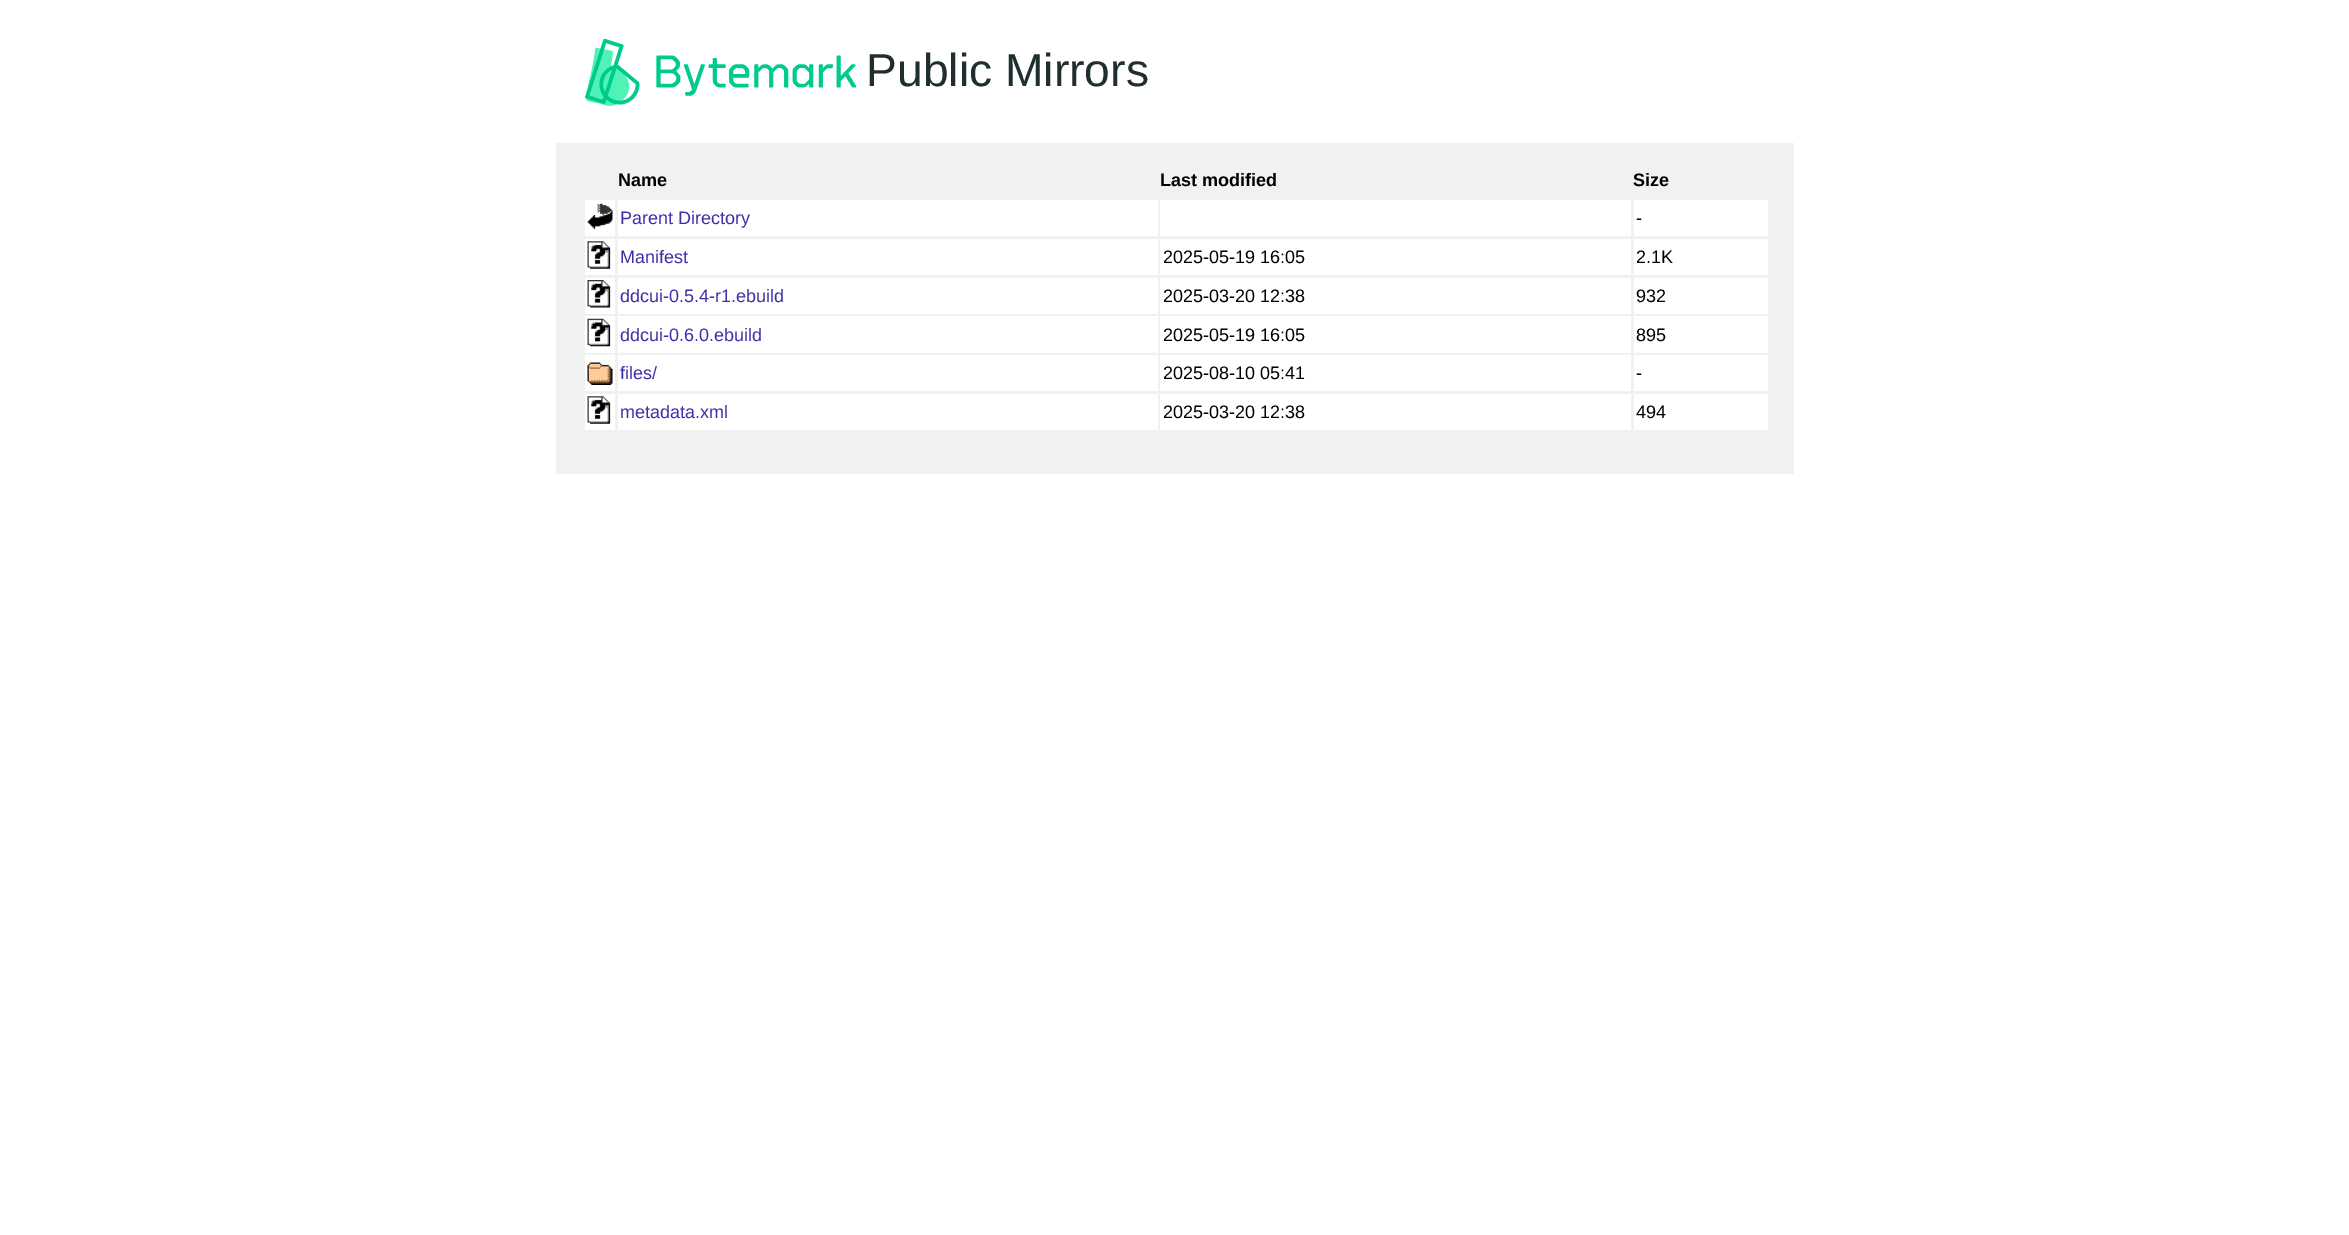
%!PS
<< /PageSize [2349 1235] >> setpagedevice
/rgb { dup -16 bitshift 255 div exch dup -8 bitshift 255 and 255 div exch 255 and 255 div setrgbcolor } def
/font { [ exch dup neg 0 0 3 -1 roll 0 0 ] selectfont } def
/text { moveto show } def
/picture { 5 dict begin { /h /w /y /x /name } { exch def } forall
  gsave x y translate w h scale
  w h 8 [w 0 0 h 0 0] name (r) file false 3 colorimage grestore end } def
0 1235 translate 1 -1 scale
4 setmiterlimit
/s1 { /LiberationSans-Regular 46.25 font 16#212E30 rgb } def
/s2 { /LiberationSans-Bold 18 font 16#000000 rgb } def
/s3 { /LiberationSans-Regular 18 font 16#3C30A9 rgb } def
/s4 { /LiberationSans-Regular 18 font 16#000000 rgb } def
16#FFFFFF rgb
0 0 2349 1235 rectfill
16#F1F1F1 rgb
556 143 1238 331 rectfill
(pic1.raw) 585 38 271 68 picture
s1
(Public Mirrors) 866 86 text
s2
(Name) 618 186 text
(Last modified) 1160 186 text
(Size) 1633 186 text
16#FFFFFF rgb
585 200 30 36 rectfill
(pic2.raw) 587 203 26 26 picture
618 200 540 36 rectfill
s3
(Parent Directory) 620 224 text
16#FFFFFF rgb
1160 200 471 36 rectfill
1634 200 134 36 rectfill
s4
(-) 1636 224 text
16#FFFFFF rgb
585 239 30 36 rectfill
(pic3.raw) 587 241 24 28 picture
618 239 540 36 rectfill
s3
(Manifest) 620 263 text
16#FFFFFF rgb
1160 239 471 36 rectfill
s4
(2025-05-19 16:05) 1163 263 text
16#FFFFFF rgb
1634 239 134 36 rectfill
s4
(2.1K) 1636 263 text
16#FFFFFF rgb
585 278 30 36 rectfill
(pic4.raw) 587 280 24 28 picture
618 278 540 36 rectfill
s3
(ddcui-0.5.4-r1.ebuild) 620 302 text
16#FFFFFF rgb
1160 278 471 36 rectfill
s4
(2025-03-20 12:38) 1163 302 text
16#FFFFFF rgb
1634 278 134 36 rectfill
s4
(932) 1636 302 text
16#FFFFFF rgb
585 316 30 37 rectfill
(pic5.raw) 587 318 24 29 picture
618 316 540 37 rectfill
s3
(ddcui-0.6.0.ebuild) 620 341 text
16#FFFFFF rgb
1160 316 471 37 rectfill
s4
(2025-05-19 16:05) 1163 341 text
16#FFFFFF rgb
1634 316 134 37 rectfill
s4
(895) 1636 341 text
16#FFFFFF rgb
585 355 30 36 rectfill
(pic6.raw) 587 362 26 23 picture
618 355 540 36 rectfill
s3
(files/) 620 379 text
16#FFFFFF rgb
1160 355 471 36 rectfill
s4
(2025-08-10 05:41) 1163 379 text
16#FFFFFF rgb
1634 355 134 36 rectfill
s4
(-) 1636 379 text
16#FFFFFF rgb
585 394 30 36 rectfill
(pic3.raw) 587 396 24 28 picture
618 394 540 36 rectfill
s3
(metadata.xml) 620 418 text
16#FFFFFF rgb
1160 394 471 36 rectfill
s4
(2025-03-20 12:38) 1163 418 text
16#FFFFFF rgb
1634 394 134 36 rectfill
s4
(494) 1636 418 text
showpage
